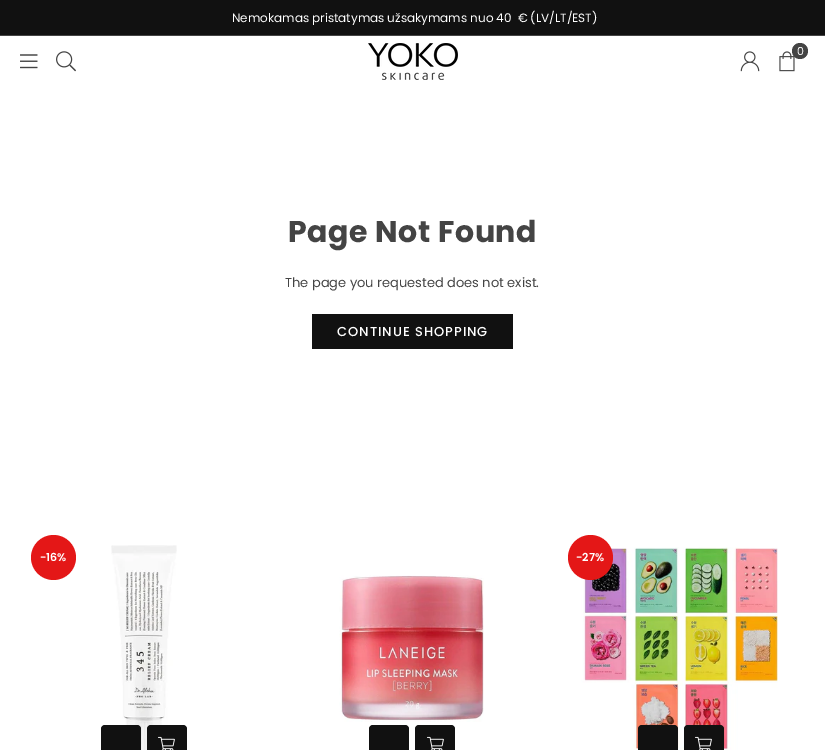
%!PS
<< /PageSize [825 750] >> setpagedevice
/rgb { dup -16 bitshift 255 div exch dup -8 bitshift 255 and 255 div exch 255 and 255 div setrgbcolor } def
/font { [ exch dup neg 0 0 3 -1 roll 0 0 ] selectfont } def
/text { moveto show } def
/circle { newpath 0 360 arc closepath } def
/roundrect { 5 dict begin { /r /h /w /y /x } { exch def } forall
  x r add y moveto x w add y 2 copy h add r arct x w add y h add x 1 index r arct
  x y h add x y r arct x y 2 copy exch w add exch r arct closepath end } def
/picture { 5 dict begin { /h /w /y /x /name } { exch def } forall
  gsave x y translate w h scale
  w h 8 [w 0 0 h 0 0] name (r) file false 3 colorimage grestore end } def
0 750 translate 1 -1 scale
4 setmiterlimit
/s1 { /Poppins-Regular 12 font 16#FFFFFF rgb } def
/s2 { /Poppins-Regular 11 font 16#FFFFFF rgb } def
/s3 { /Poppins-Regular 13 font 16#444444 rgb } def
/s4 { /Poppins-SemiBold 11 font 16#FFFFFF rgb } def
16#FFFFFF rgb
0 0 825 750 rectfill
16#111111 rgb
0 0 825 35 rectfill
16#444444 rgb
0 35 825 1 rectfill
s1
(Nemokamas pristatymas užsakymams nuo 40 € \(LV/LT/EST\)) 232 22 text
(pic1.raw) 20 54 18 15 picture
(pic2.raw) 56 51 20 21 picture
(pic3.raw) 368 43 90 37 picture
(pic4.raw) 740 51 20 21 picture
(pic5.raw) 779 51 16 21 picture
16#444444 rgb
800 51 8 circle fill
s2
(0) 797 55 text
/Poppins-Bold 30 font
16#444444 rgb
288 242 moveto 0.6 0 (Page Not Found) ashow
s3
(The page you requested does not exist.) 285 287 text
16#111111 rgb
312 314 201 35 rectfill
/Poppins-Medium 13 font
16#FFFFFF rgb
337 336 moveto 1 0 (CONTINUE SHOPPING) ashow
16#E41717 rgb
53.5 557.5 22.5 circle fill
s4
(-16%) 40 561 text
(pic6.raw) 111 545 66 205 picture
16#111111 rgb
101 725 40 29 4 roundrect fill
147 725 40 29 4 roundrect fill
(pic7.raw) 158 736 17 14 picture
(pic8.raw) 581 547 197 203 picture
16#E41717 rgb
590.5 557.5 22.5 circle fill
s4
(-27%) 576 561 text
16#111111 rgb
638 725 40 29 4 roundrect fill
684 725 40 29 4 roundrect fill
(pic7.raw) 695 736 17 14 picture
(pic9.raw) 339 575 145 147 picture
369 725 40 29 4 roundrect fill
415 725 40 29 4 roundrect fill
(pic7.raw) 427 736 17 14 picture
showpage
